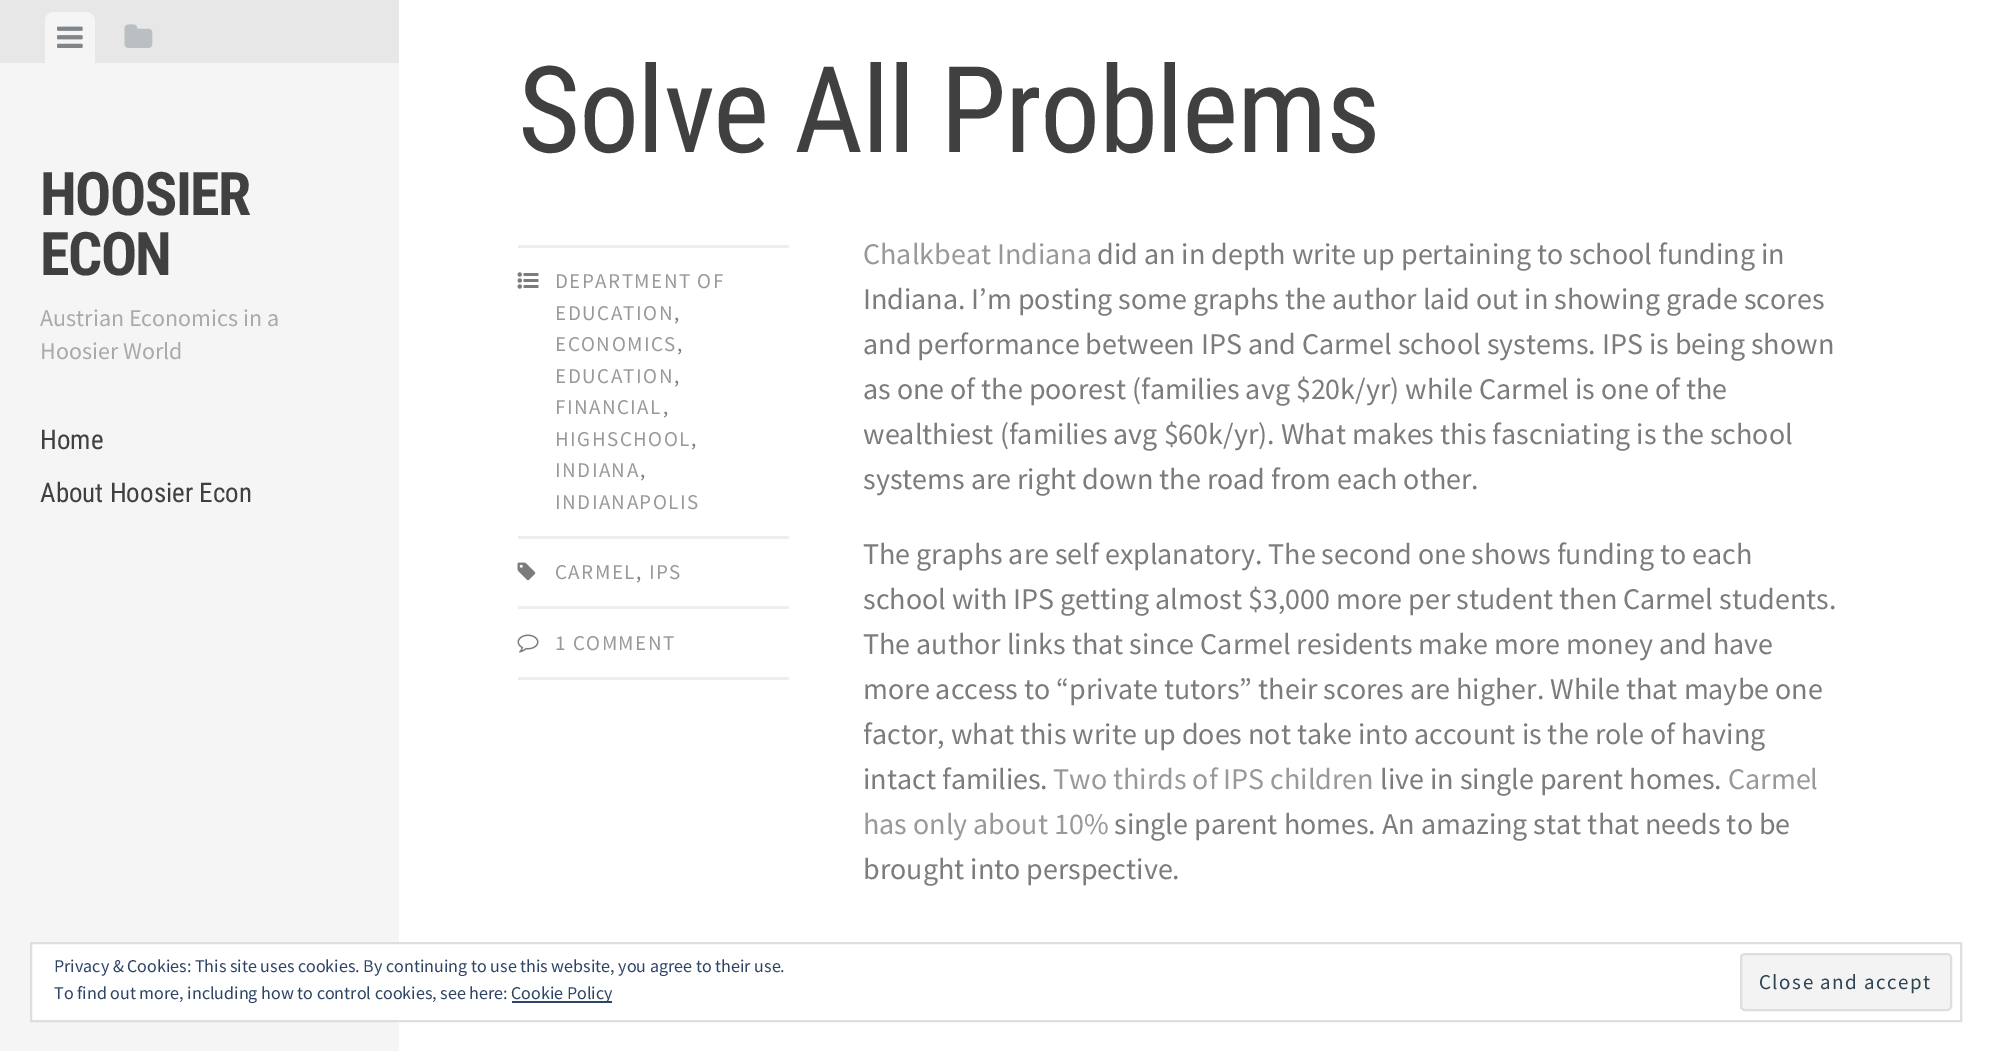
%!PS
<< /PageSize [1992 1051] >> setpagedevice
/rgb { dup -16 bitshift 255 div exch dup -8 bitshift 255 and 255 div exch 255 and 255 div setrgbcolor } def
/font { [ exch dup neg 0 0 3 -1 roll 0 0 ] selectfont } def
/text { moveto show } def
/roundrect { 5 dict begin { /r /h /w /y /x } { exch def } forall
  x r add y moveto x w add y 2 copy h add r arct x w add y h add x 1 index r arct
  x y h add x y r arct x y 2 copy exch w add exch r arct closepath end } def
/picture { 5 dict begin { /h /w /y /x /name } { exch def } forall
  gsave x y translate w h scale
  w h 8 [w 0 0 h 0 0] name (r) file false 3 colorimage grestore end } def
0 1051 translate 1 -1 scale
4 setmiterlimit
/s1 { /SourceSansPro-Regular 24 font 16#AAAAAA rgb } def
/s2 { /RobotoCondensed-Regular 27 font 16#404040 rgb } def
/s3 { /SourceSansPro-Regular 30 font 16#999999 rgb } def
/s4 { /SourceSansPro-Regular 30 font 16#7C7C7C rgb } def
/s5 { /SourceSansPro-Regular 18 font 16#2E4467 rgb } def
16#FFFFFF rgb
0 0 1992 1051 rectfill
16#F5F5F5 rgb
0 63 399 988 rectfill
16#E7E7E7 rgb
0 0 399 63 rectfill
16#F5F5F5 rgb
54 12 moveto 86 12 lineto 91 12 95 16 95 21 curveto 95 63 lineto 45 63 lineto 45 21 lineto 45 16 49 12 54 12 curveto closepath fill
(pic1.raw) 57 26 26 22 picture
(pic2.raw) 124 24 29 24 picture
/RobotoCondensed-Bold 60 font
16#404040 rgb
40 215 moveto -1.5 0 (HOOSIER) ashow
40 275 moveto -1.5 0 (ECON) ashow
s1
(Austrian Economics in a) 40 326 text
(Hoosier World) 40 359 text
s2
(Home) 40 449 text
(About Hoosier Econ) 40 502 text
/RobotoCondensed-Regular 120 font
518 152 moveto -1.5 0 (Solve All Problems) ashow
16#EEEEEE rgb
518 245 271 3 rectfill
518 536 271 3 rectfill
(pic3.raw) 517 272 22 17 picture
/SourceSansPro-Regular 21 font
16#999999 rgb
555 288 moveto 1.5 0 (DEPARTMENT OF) ashow
555 320 moveto 1.5 0 (EDUCATION) ashow
16#7C7C7C rgb
674 320 moveto 1.5 0 (,) ashow
16#999999 rgb
555 351 moveto 1.5 0 (ECONOMICS) ashow
16#7C7C7C rgb
677 351 moveto 1.5 0 (,) ashow
16#999999 rgb
555 383 moveto 1.5 0 (EDUCATION) ashow
16#7C7C7C rgb
674 383 moveto 1.5 0 (,) ashow
16#999999 rgb
555 414 moveto 1.5 0 (FINANCIAL) ashow
16#7C7C7C rgb
663 414 moveto 1.5 0 (,) ashow
16#999999 rgb
555 446 moveto 1.5 0 (HIGHSCHOOL) ashow
16#7C7C7C rgb
691 446 moveto 1.5 0 (,) ashow
16#999999 rgb
555 477 moveto 1.5 0 (INDIANA) ashow
16#7C7C7C rgb
640 477 moveto 1.5 0 (,) ashow
16#999999 rgb
555 509 moveto 1.5 0 (INDIANAPOLIS) ashow
16#EEEEEE rgb
518 606 271 3 rectfill
(pic4.raw) 517 562 19 19 picture
16#999999 rgb
555 579 moveto 1.5 0 (CARMEL) ashow
16#7C7C7C rgb
636 579 moveto 1.5 0 (,) ashow
16#999999 rgb
649 579 moveto 1.5 0 (IPS) ashow
16#EEEEEE rgb
518 677 271 3 rectfill
(pic5.raw) 517 634 22 19 picture
16#999999 rgb
555 650 moveto 1.5 0 (1 COMMENT) ashow
s3
(Chalkbeat Indiana) 863 264 text
s4
(did an in depth write up pertaining to school funding in) 1097 264 text
(Indiana. I’m posting some graphs the author laid out in showing grade scores) 863 309 text
(and performance between IPS and Carmel school systems. IPS is being shown) 863 354 text
(as one of the poorest \(families avg $20k/yr\) while Carmel is one of the) 863 399 text
(wealthiest \(families avg $60k/yr\). What makes this fascniating is the school) 863 444 text
(systems are right down the road from each other.) 863 489 text
(The graphs are self explanatory. The second one shows funding to each) 863 564 text
(school with IPS getting almost $3,000 more per student then Carmel students.) 863 609 text
(The author links that since Carmel residents make more money and have) 863 654 text
(more access to “private tutors” their scores are higher. While that maybe one) 863 699 text
(factor, what this write up does not take into account is the role of having) 863 744 text
(intact families.) 863 789 text
s3
(Two thirds of IPS children) 1053 789 text
s4
(live in single parent homes.) 1380 789 text
s3
(Carmel) 1728 789 text
(has only about 10%) 863 834 text
s4
(single parent homes. An amazing stat that needs to be) 1114 834 text
(brought into perspective.) 863 879 text
16#FFFFFF rgb
32 944 367 76 rectfill
16#DEDEDE rgb
2 setlinewidth
31 943 1930 78 rectstroke
s5
(Privacy & Cookies: This site uses cookies. By continuing to use this website, you agree to their use.) 54 972 text
(To find out more, including how to control cookies, see here:) 54 999 text
512 1001 100 2 rectfill
(Cookie Policy) 511 999 text
16#F3F3F3 rgb
1741 954 210 56 4 roundrect gsave fill grestore
16#DEDEDE rgb
stroke
/SourceSansPro-Regular 21 font
16#2E4453 rgb
1759 989 moveto 1.5 0 (Close and accept) ashow
showpage
